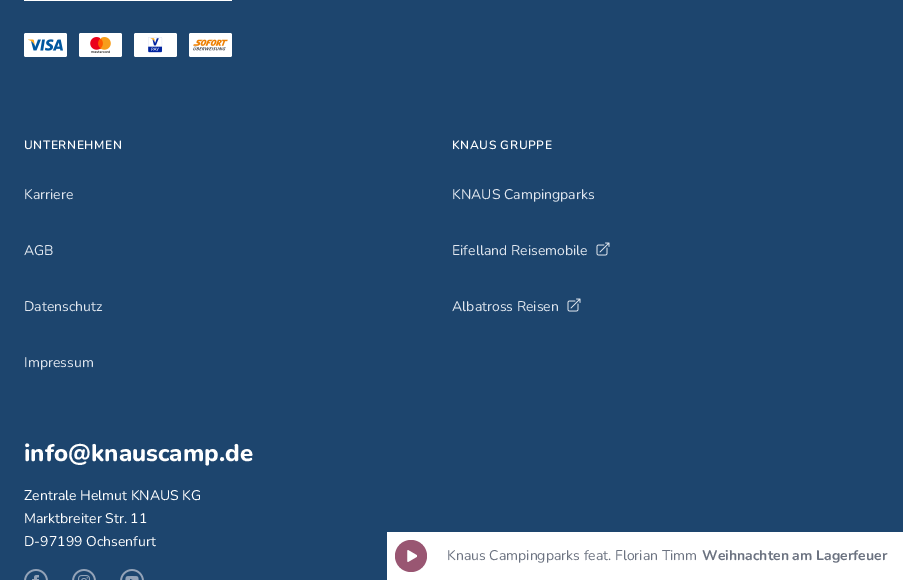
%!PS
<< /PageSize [903 580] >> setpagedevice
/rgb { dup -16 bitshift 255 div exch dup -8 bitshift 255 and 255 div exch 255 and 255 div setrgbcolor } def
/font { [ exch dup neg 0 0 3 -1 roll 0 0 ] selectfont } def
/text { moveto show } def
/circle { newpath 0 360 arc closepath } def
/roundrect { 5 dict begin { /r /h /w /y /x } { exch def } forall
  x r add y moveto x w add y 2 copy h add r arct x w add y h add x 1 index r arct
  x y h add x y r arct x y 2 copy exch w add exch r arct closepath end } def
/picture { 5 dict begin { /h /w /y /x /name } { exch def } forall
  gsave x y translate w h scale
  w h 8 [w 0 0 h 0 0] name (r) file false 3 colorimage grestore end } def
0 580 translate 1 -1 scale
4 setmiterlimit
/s1 { /Nunito-Regular 14 font 16#E2E8F0 rgb } def
/s2 { /Nunito-ExtraBold 24 font 16#FFFFFF rgb } def
/s3 { /Nunito-Regular 14 font 16#FFFFFF rgb } def
/s4 { /Nunito-Regular 14 font 16#6B7280 rgb } def
/s5 { /Nunito-Bold 14 font 16#6B7280 rgb } def
16#1D456E rgb
0 0 903 580 rectfill
16#FFFFFF rgb
24 0 208 1 rectfill
24 33 43 24 2 roundrect fill
(pic1.raw) 28 39 35 12 picture
79 33 43 24 2 roundrect fill
(pic2.raw) 90 37 21 16 picture
134 33 43 24 2 roundrect fill
(pic3.raw) 148 37 15 16 picture
189 33 43 24 2 roundrect fill
(pic4.raw) 193 39 35 12 picture
/Nunito-SemiBold 12 font
24 149 moveto 0.6 0 (UNTERNEHMEN) ashow
s1
(Karriere) 24 199 text
(AGB) 24 255 text
(Datenschutz) 24 311 text
(Impressum) 24 367 text
/Nunito-SemiBold 12 font
16#FFFFFF rgb
452 149 moveto 0.6 0 (KNAUS GRUPPE) ashow
s1
(KNAUS Campingparks) 452 199 text
(Eifelland Reisemobile) 452 255 text
(pic5.raw) 596 242 14 14 picture
(Albatross Reisen) 452 311 text
(pic5.raw) 567 298 14 14 picture
s2
(info@knauscamp.de) 24 461 text
s3
(Zentrale Helmut KNAUS KG) 24 500 text
(Marktbreiter Str. 11) 24 523 text
(D-97199 Ochsenfurt) 24 546 text
(pic6.raw) 24 569 24 11 picture
(pic7.raw) 72 569 24 11 picture
(pic8.raw) 120 569 24 11 picture
387 532 516 48 rectfill
16#995672 rgb
411 556 16 circle fill
(pic9.raw) 407 550 10 12 picture
s4
(Knaus Campingparks feat. Florian Timm) 447 560 text
s5
(Weihnachten am Lagerfeuer) 702 560 text
showpage
